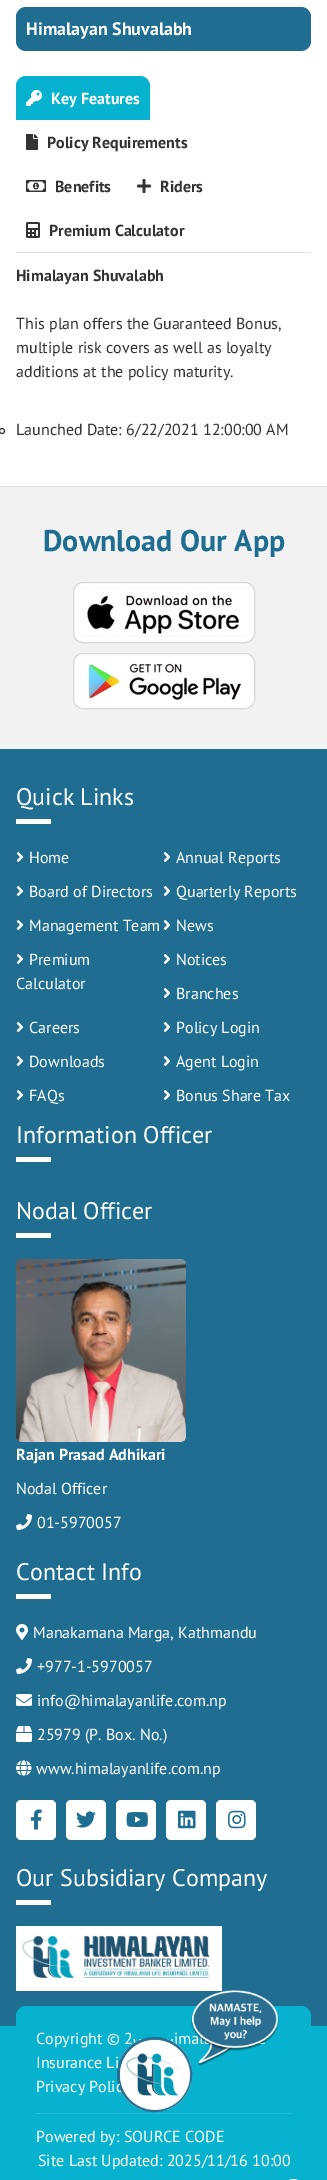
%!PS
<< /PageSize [327 2180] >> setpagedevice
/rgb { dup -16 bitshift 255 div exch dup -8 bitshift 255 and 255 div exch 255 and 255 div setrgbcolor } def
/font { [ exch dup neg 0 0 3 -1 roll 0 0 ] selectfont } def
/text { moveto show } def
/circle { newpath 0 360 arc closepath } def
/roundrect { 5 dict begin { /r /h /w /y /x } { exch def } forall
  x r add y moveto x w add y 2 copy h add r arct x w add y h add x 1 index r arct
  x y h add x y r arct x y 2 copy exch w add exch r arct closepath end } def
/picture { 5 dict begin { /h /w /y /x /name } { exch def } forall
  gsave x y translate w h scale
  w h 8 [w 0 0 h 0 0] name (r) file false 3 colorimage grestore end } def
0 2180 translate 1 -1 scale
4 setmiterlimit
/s1 { /PTSans-Bold 18 font 16#FFFFFF rgb } def
/s2 { /PTSans-Bold 16 font 16#FFFFFF rgb } def
/s3 { /PTSans-Bold 16 font 16#333333 rgb } def
/s4 { /PTSans-Regular 16 font 16#333333 rgb } def
/s5 { /PTSans-Bold 30 font 16#1F6E91 rgb } def
/s6 { /PTSans-Regular 24 font 16#FFFFFF rgb } def
/s7 { /PTSans-Regular 16 font 16#FFFFFF rgb } def
16#FFFFFF rgb
0 0 327 2180 rectfill
16#1F6E91 rgb
16 7 295 44 10 roundrect fill
s1
(Himalayan Shuvalabh) 26 35 text
16#DEE2E6 rgb
16 252 295 1 rectfill
16#07B2CE rgb
26 76 moveto 140 76 lineto 145.5 76 150 80.5 150 86 curveto 150 120 lineto 16 120 lineto 16 86 lineto 16 80.5 20.5 76 26 76 curveto closepath fill
(pic1.raw) 26 90 16 16 picture
s2
(Key Features) 51 104 text
(pic2.raw) 26 134 12 16 picture
s3
(Policy Requirements) 47 148 text
(pic3.raw) 26 180 20 12 picture
(Benefits) 55 192 text
(pic4.raw) 137 179 14 14 picture
(Riders) 160 192 text
(pic5.raw) 26 222 14 16 picture
(Premium Calculator) 49 236 text
(Himalayan Shuvalabh) 16 281 text
s4
(This plan offers the Guaranteed Bonus,) 16 329 text
(multiple risk covers as well as loyalty) 16 353 text
(additions at the policy maturity.) 16 377 text
2 431 2.5 circle stroke
(Launched Date: 6/22/2021 12:00:00 AM) 16 435 text
16#F2F2F2 rgb
0 487 327 262 rectfill
16#DDDDDD rgb
0 486 327 1 rectfill
s5
(Download Our App) 43 551 text
16#FFFFFF rgb
73.5 582.5 181 60 9.5 roundrect gsave fill grestore
16#D7D7D7 rgb
stroke
(pic6.raw) 79 588 170 49 picture
16#FFFFFF rgb
73.5 653.5 181 55 9.5 roundrect gsave fill grestore
16#D7D7D7 rgb
stroke
(pic7.raw) 88 661 154 39 picture
16#1F6E91 rgb
0 749 327 1277 rectfill
s6
(Quick Links) 16 805 text
16 819 35 5 rectfill
(pic8.raw) 16 852 8 10 picture
s7
(Home) 29 863 text
(pic8.raw) 163 852 8 10 picture
(Annual Reports) 176 863 text
(pic8.raw) 16 886 8 10 picture
(Board of Directors) 29 897 text
(pic8.raw) 163 886 8 10 picture
(Quarterly Reports) 176 897 text
(pic8.raw) 16 920 8 10 picture
(Management Team) 29 931 text
(pic8.raw) 163 920 8 10 picture
(News) 176 931 text
(pic8.raw) 16 954 8 10 picture
(Premium) 29 965 text
(Calculator) 16 989 text
(pic8.raw) 163 954 8 10 picture
(Notices) 176 965 text
(pic8.raw) 163 988 8 10 picture
(Branches) 176 999 text
(pic8.raw) 16 1022 8 10 picture
(Careers) 29 1033 text
(pic8.raw) 163 1022 8 10 picture
(Policy Login) 176 1033 text
(pic8.raw) 16 1056 8 10 picture
(Downloads) 29 1067 text
(pic8.raw) 163 1056 8 10 picture
(Agent Login) 176 1067 text
(pic8.raw) 16 1090 8 10 picture
(FAQs) 29 1101 text
(pic8.raw) 163 1090 8 10 picture
(Bonus Share Tax) 176 1101 text
s6
(Information Officer) 16 1143 text
16 1157 35 5 rectfill
(Nodal Officer) 16 1219 text
16 1233 35 5 rectfill
(pic9.raw) 16 1259 170 183 picture
s2
(Rajan Prasad Adhikari) 16 1460 text
s7
(Nodal Officer) 16 1494 text
(pic10.raw) 16 1514 16 16 picture
(01-5970057) 37 1528 text
s6
(Contact Info) 16 1580 text
16 1594 35 5 rectfill
(pic11.raw) 16 1624 12 16 picture
s7
(Manakamana Marga, Kathmandu) 33 1638 text
(pic10.raw) 16 1658 16 16 picture
(+977-1-5970057) 37 1672 text
(pic12.raw) 16 1694 16 12 picture
(info@himalayanlife.com.np) 37 1706 text
(pic13.raw) 16 1726 16 16 picture
(25979 \(P. Box. No.\)) 37 1740 text
(pic14.raw) 16 1760 16 16 picture
(www.himalayanlife.com.np) 36 1774 text
16 1800 40 40 5 roundrect fill
(pic15.raw) 30 1809 12 21 picture
66 1800 40 40 5 roundrect fill
(pic16.raw) 76 1811 20 17 picture
116 1800 40 40 5 roundrect fill
(pic17.raw) 126 1812 22 15 picture
166 1800 40 40 5 roundrect fill
(pic18.raw) 178 1810 18 19 picture
216 1800 40 40 5 roundrect fill
(pic19.raw) 228 1810 18 19 picture
s6
(Our Subsidiary Company) 16 1886 text
16 1900 35 5 rectfill
16 1926 206 65 rectfill
(pic20.raw) 21 1935 189 43 picture
16#07B2CE rgb
0 2026 327 154 rectfill
26 2006 moveto 301 2006 lineto 306.5 2006 311 2010.5 311 2016 curveto 311 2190 lineto 16 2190 lineto 16 2016 lineto 16 2010.5 20.5 2006 26 2006 curveto closepath fill
16#FFFFFF rgb
154.5 2074.5 36 circle gsave fill grestore
16#2A6E91 rgb
3 setlinewidth
stroke
s7
(ima) 174 2044 text
(pic21.raw) 191 1990 88 76 picture
(Copyright © 2) 36 2044 text
(Privacy Polic) 36 2092 text
(pic22.raw) 120 2039 71 71 picture
(Insurance Li) 36 2068 text
16#25BCD5 rgb
36 2113 255 1 rectfill
s7
(Powered by: SOURCE CODE) 36 2142 text
(Site Last Updated: 2025/11/16 10:00) 38 2166 text
284 2179 19 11 9.5 roundrect fill
showpage
